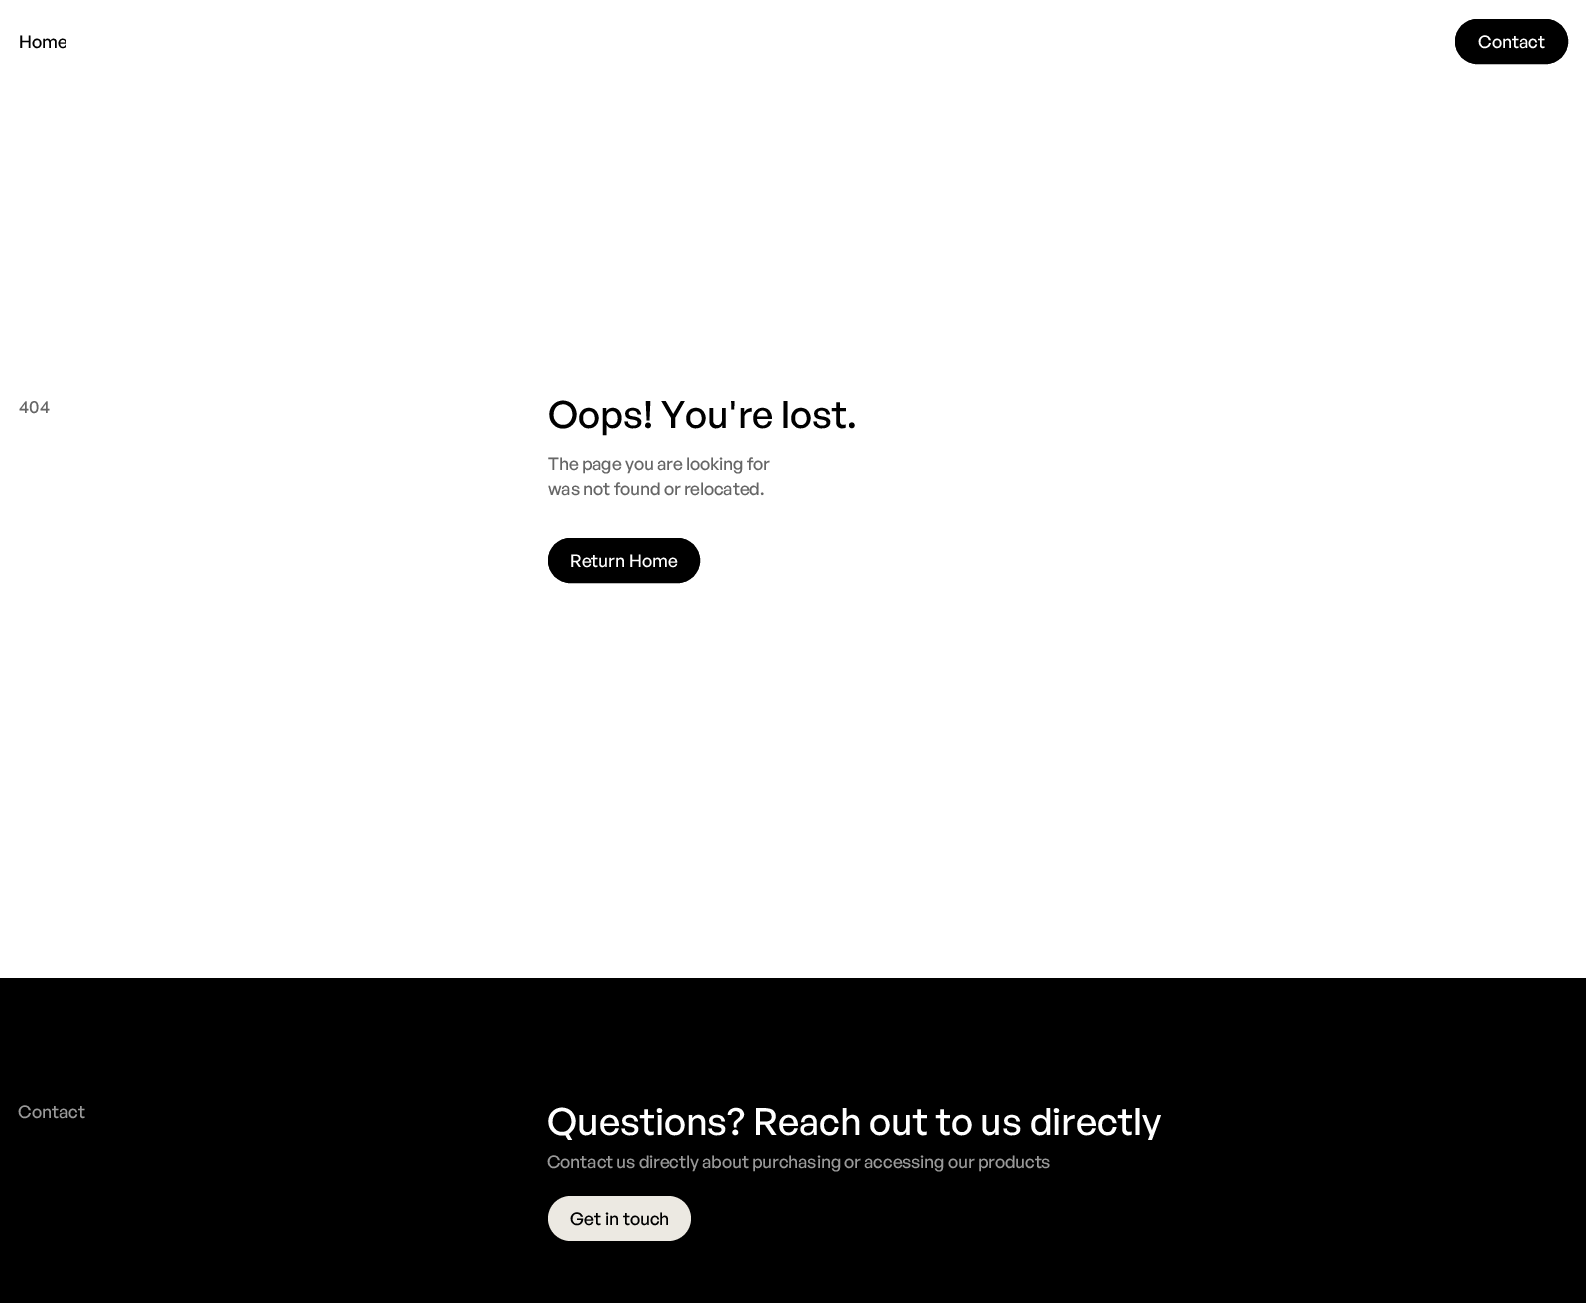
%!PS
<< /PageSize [1586 1303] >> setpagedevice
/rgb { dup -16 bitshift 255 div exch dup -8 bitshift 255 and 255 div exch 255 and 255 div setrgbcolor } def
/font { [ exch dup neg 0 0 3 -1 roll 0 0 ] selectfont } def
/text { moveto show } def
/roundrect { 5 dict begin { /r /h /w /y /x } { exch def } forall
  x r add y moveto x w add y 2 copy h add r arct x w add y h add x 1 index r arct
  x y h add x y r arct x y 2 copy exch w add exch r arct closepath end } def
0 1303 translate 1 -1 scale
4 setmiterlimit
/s1 { /GeneralSans-Medium 17.5 font 16#000000 rgb } def
/s2 { /GeneralSans-Medium 17.5 font 16#FFFFFF rgb } def
/s3 { /GeneralSans-Medium 17.5 font 16#666666 rgb } def
/s4 { /GeneralSans-Medium 37.5 font 16#000000 rgb } def
/s5 { /GeneralSans-Medium 17.5 font 16#999999 rgb } def
/s6 { /GeneralSans-Medium 37.5 font 16#FFFFFF rgb } def
16#FFFFFF rgb
0 0 1586 1303 rectfill
gsave
19 28 47 27 rectclip
s1
(Home) 19 48 text
grestore
16#000000 rgb
1455 19 113 45 22.5 roundrect fill
1455.5 19.5 112 44 22 roundrect stroke
s2
(Contact) 1478 48 text
s3
(404) 19 413 text
s4
(Oops! You're lost.) 548 428 text
/GeneralSans-Medium 17.5 font
16#666666 rgb
548 470 moveto -0.18 0 (The page you are looking for) ashow
548 495 moveto -0.18 0 (was not found or relocated.) ashow
16#000000 rgb
548 538 152 45 22.5 roundrect fill
548.5 538.5 151 44 22 roundrect stroke
s2
(Return Home) 570 567 text
16#000000 rgb
0 978 1586 325 rectfill
s5
(Contact) 18 1118 text
gsave
548 1103 613 37 rectclip
s6
(Questions? Reach out to us directly) 547 1135 text
grestore
547 1168 moveto -0.18 0 (Contact us directly about purchasing or accessing our products) ashow
16#ECE9E2 rgb
548 1196 143 45 22.5 roundrect fill
s1
(Get in touch) 570 1225 text
showpage
